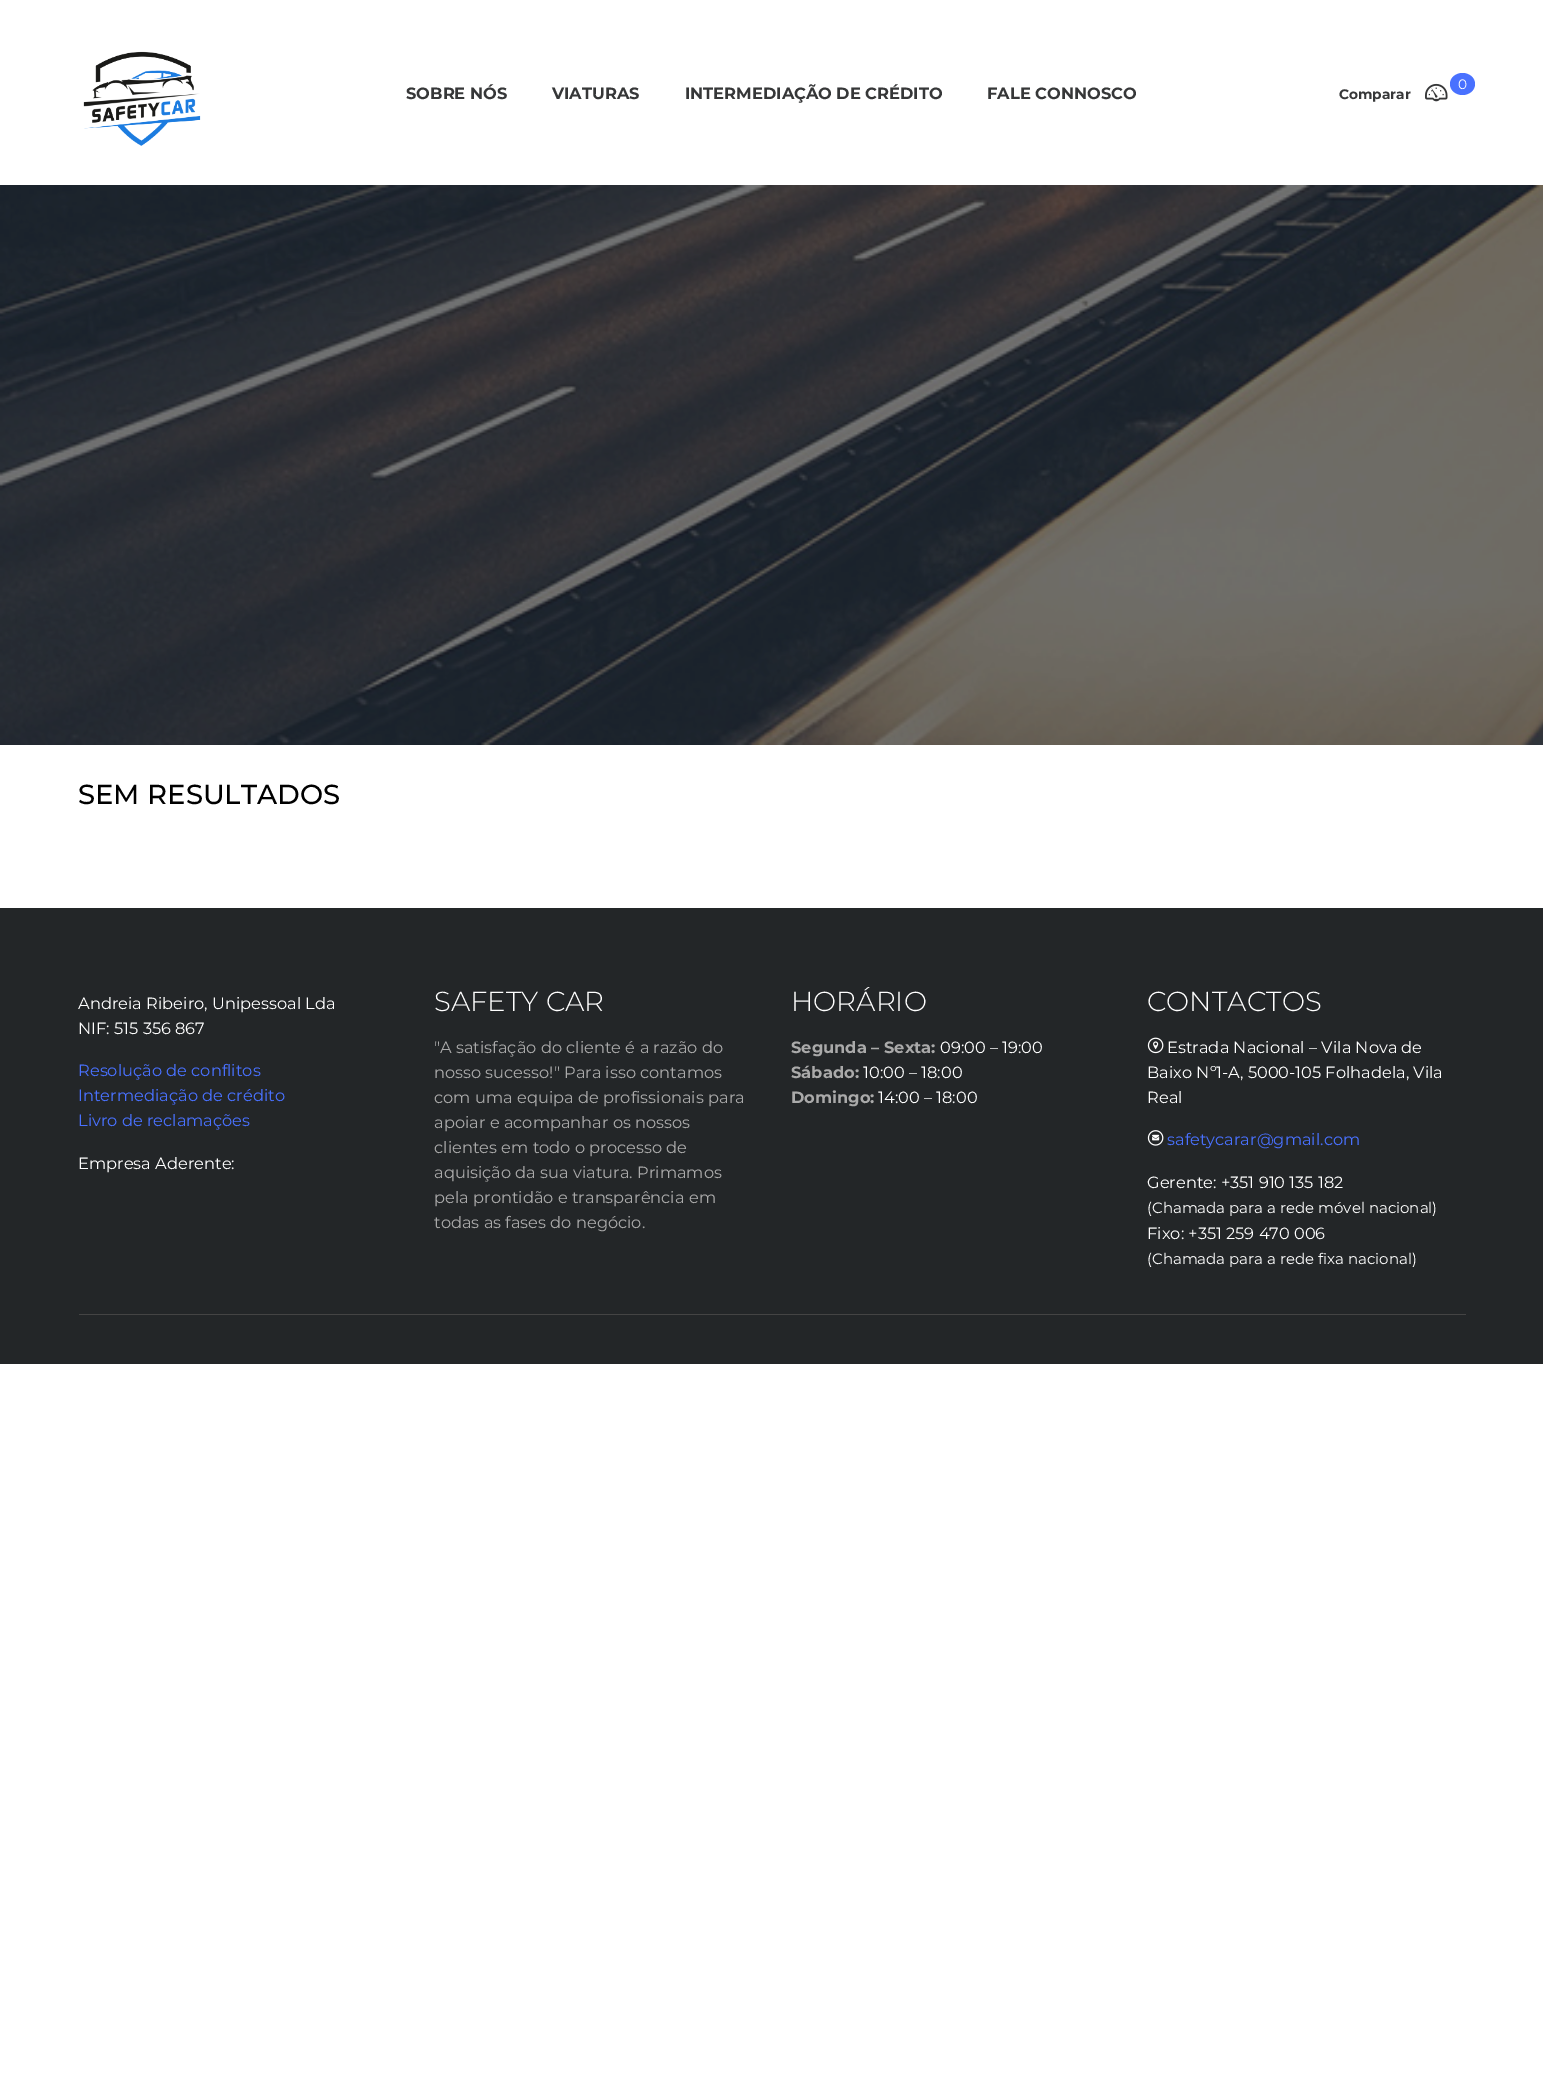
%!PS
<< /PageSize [1543 2075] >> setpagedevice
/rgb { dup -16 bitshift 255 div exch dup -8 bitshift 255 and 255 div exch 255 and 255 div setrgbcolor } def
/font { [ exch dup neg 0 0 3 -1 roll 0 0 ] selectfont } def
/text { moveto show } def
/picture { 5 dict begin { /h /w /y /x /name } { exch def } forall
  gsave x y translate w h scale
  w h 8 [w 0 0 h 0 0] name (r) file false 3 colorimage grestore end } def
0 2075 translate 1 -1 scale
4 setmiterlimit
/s1 { /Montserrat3-Thin 16.25 font 16#363738 rgb } def
/s2 { /Montserrat3-Thin 13.75 font 16#363738 rgb } def
/s3 { /Montserrat-Thin 13.75 font 16#FFFFFF rgb } def
/s4 { /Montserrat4-Thin 27.5 font 16#000000 rgb } def
/s5 { /Montserrat-Thin 16.25 font 16#FFFFFF rgb } def
/s6 { /Montserrat-Thin 16.25 font 16#4971FF rgb } def
/s7 { /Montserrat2-Thin 27.5 font 16#FFFFFF rgb } def
/s8 { /Montserrat-Thin 16.25 font 16#AAAAAA rgb } def
/s9 { /Montserrat3-Thin 16.25 font 16#AAAAAA rgb } def
/s10 { /Montserrat-Thin 15 font 16#FFFFFF rgb } def
16#FFFFFF rgb
0 0 1543 2075 rectfill
(pic1.raw) 83 51 118 95 picture
s1
(SOBRE NÓS) 406 99 text
(VIATURAS) 552 99 text
(INTERMEDIAÇÃO DE CRÉDITO) 685 99 text
(FALE CONNOSCO) 987 99 text
s2
(Comparar) 1339 99 text
(pic2.raw) 1425 83 23 19 picture
16#4971FF rgb
1462.5 73 moveto 1469.5 73 1475 78 1475 84 curveto 1475 90 1469.5 95 1462.5 95 curveto 1455.5 95 1450 90 1450 84 curveto 1450 78 1455.5 73 1462.5 73 curveto closepath fill
s3
(0) 1458 89 text
(pic3.raw) 0 185 1543 560 picture
s4
(SEM RESULTADOS) 78 804 text
16#232628 rgb
0 908 1543 456 rectfill
s5
(Andreia Ribeiro, Unipessoal Lda) 78 1009 text
(NIF: 515 356 867) 78 1034 text
s6
(Resolução de conflitos) 78 1076 text
(Intermediação de crédito) 78 1101 text
(Livro de reclamações) 78 1126 text
s5
(Empresa Aderente:) 78 1169 text
s7
(SAFETY CAR) 434 1011 text
s8
("A satisfação do cliente é a razão do) 434 1053 text
(nosso sucesso!" Para isso contamos) 434 1078 text
(com uma equipa de profissionais para) 434 1103 text
(apoiar e acompanhar os nossos) 434 1128 text
(clientes em todo o processo de) 434 1153 text
(aquisição da sua viatura. Primamos) 434 1178 text
(pela prontidão e transparência em) 434 1203 text
(todas as fases do negócio.) 434 1228 text
s7
(HORÁRIO) 791 1011 text
s9
(Segunda – Sexta:) 791 1053 text
s5
(09:00 – 19:00) 940 1053 text
s9
(Sábado:) 791 1078 text
s5
(10:00 – 18:00) 863 1078 text
s9
(Domingo:) 791 1103 text
s5
(14:00 – 18:00) 878 1103 text
s7
(CONTACTOS) 1147 1011 text
(pic4.raw) 1147 1037 17 17 picture
s5
(Estrada Nacional – Vila Nova de) 1167 1053 text
(Baixo Nº1-A, 5000-105 Folhadela, Vila) 1147 1078 text
(Real) 1147 1103 text
(pic5.raw) 1147 1130 17 16 picture
s6
(safetycarar@gmail.com) 1167 1145 text
s5
(Gerente: +351 910 135 182) 1147 1188 text
s10
(\(Chamada para a rede móvel nacional\)) 1147 1213 text
s5
(Fixo: +351 259 470 006) 1147 1239 text
s10
(\(Chamada para a rede fixa nacional\)) 1147 1264 text
16#444444 rgb
79 1314 1387 1 rectfill
showpage
